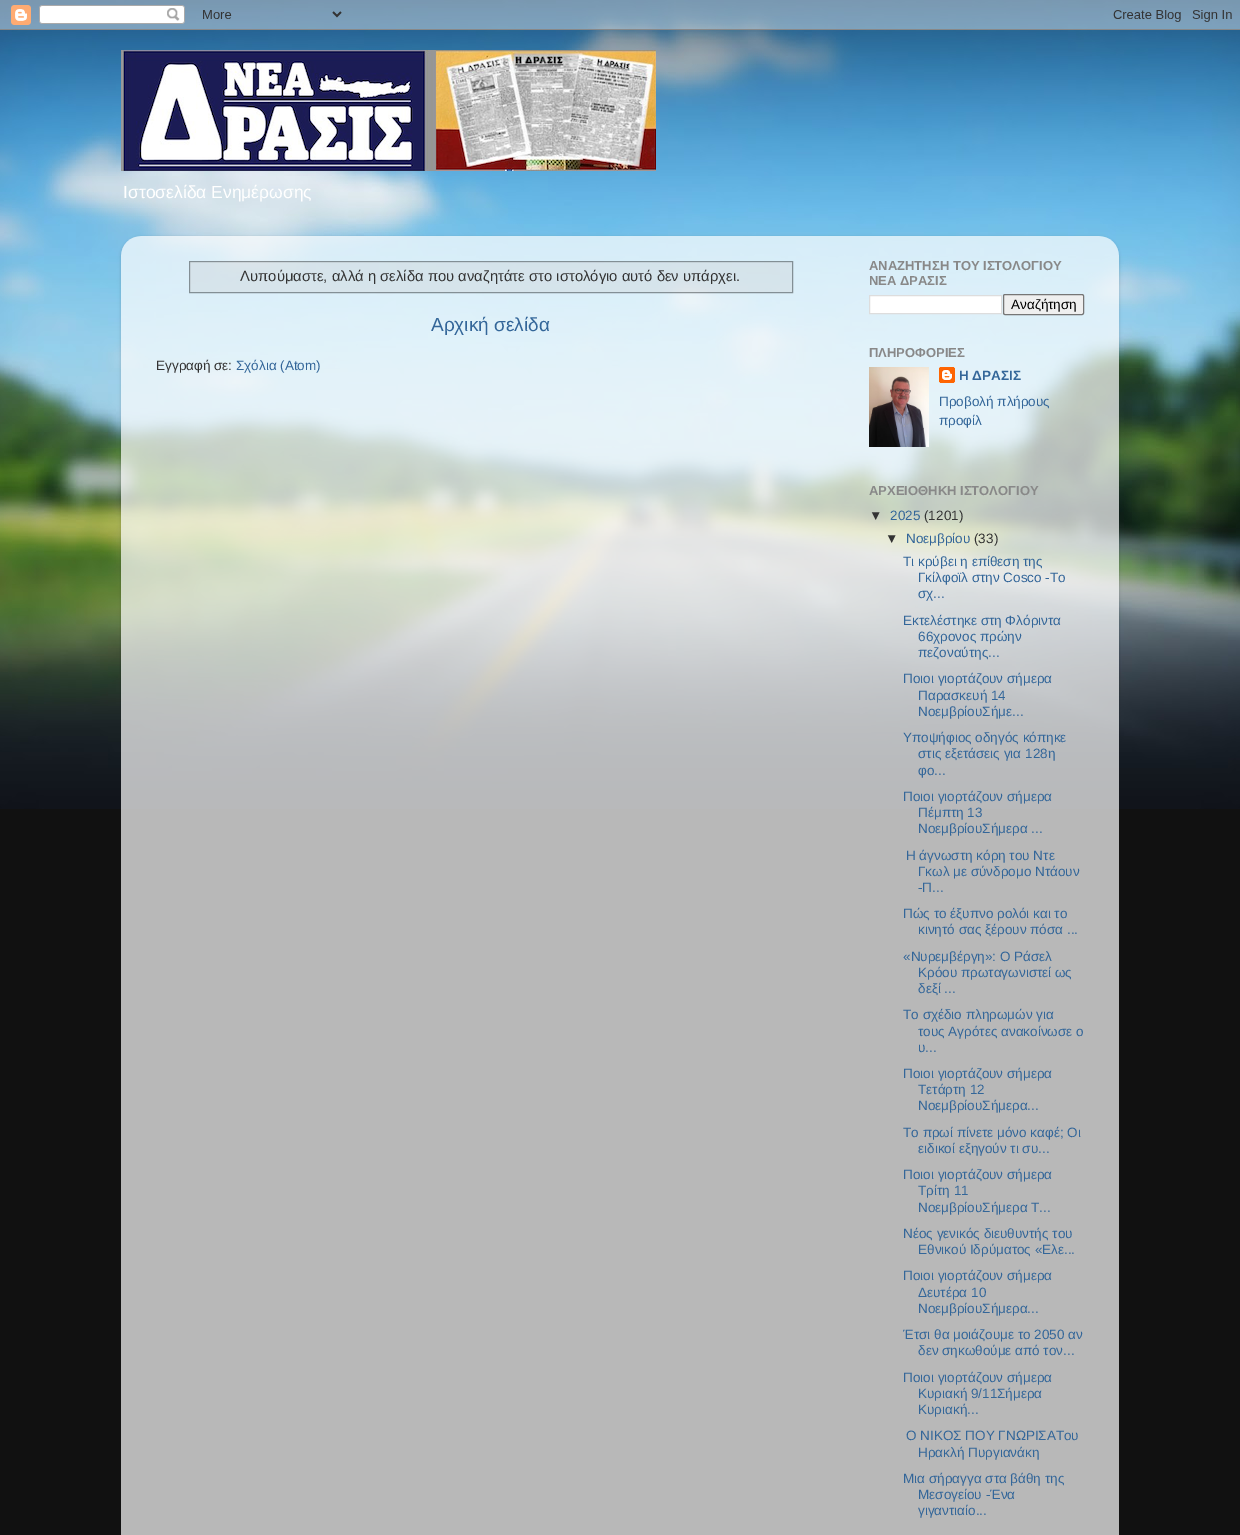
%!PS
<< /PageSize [1240 1535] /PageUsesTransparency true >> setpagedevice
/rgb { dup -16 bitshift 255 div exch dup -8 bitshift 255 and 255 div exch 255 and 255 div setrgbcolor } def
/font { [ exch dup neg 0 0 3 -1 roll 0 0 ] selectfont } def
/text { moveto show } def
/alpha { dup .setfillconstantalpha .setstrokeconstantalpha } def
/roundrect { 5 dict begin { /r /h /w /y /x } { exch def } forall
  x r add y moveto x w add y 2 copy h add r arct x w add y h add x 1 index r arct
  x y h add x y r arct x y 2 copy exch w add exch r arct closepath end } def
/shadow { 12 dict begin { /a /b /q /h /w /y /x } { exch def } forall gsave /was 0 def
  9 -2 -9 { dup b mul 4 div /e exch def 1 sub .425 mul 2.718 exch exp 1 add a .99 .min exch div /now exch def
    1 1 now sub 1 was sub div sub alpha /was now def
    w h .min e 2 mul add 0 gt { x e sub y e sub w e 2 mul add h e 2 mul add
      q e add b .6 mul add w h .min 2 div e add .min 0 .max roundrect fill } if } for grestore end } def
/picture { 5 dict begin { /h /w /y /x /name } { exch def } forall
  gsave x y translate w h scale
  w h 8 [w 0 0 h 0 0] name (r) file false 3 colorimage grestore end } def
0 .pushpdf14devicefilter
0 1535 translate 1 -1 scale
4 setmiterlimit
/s1 { /LiberationSans-Regular 17.5 font 16#FFFFFF rgb } def
/s2 { /LiberationSans-Regular 14.85 font 16#333333 rgb } def
/s3 { /LiberationSans-Regular 19 font 16#336699 rgb } def
/s4 { /LiberationSans-Regular 13.5 font 16#333333 rgb } def
/s5 { /LiberationSans-Regular 13.5 font 16#336699 rgb } def
/s6 { /LiberationSans-Bold 13 font 16#888888 rgb } def
/s7 { /LiberationSans-Regular 13.5 font 16#000000 rgb } def
/s8 { /LiberationSans-Bold 13.5 font 16#336699 rgb } def
16#111111 rgb
0 0 1240 1535 rectfill
(pic1.raw) 0 0 1240 809 picture
(pic2.raw) 0 0 1240 30 picture
(pic3.raw) 121 50 535 121 picture
s1
(Ιστοσελίδα Ενημέρωσης) 123 198 text
gsave
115 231 moveto 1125 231 lineto 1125 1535 lineto 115 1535 lineto closepath 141 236 moveto 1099 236 lineto 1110 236 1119 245 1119 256 curveto 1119 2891 lineto 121 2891 lineto 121 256 lineto 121 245 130 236 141 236 curveto closepath eoclip newpath
16#000000 rgb
121 237 998 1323 20 1.5 0.15 shadow
grestore
(pic4.raw) 121 236 998 1299 picture
0.4 alpha
16#000000 rgb
189.5 261.5 603 31 rectstroke
0.32 alpha
16#CCCCCC rgb
190 262 602 30 rectfill
1 alpha
s2
(Λυπούμαστε, αλλά η σελίδα που αναζητάτε στο ιστολόγιο αυτό δεν υπάρχει.) 240 281 text
s3
(Αρχική σελίδα) 431 331 text
s4
(Εγγραφή σε:) 156 370 text
s5
(Σχόλια \(Atom\)) 236 370 text
s6
(ΑΝΑΖΗΤΗΣΗ ΤΟΥ ΙΣΤΟΛΟΓΙΟΥ) 869 270 text
(ΝΕΑ ΔΡΑΣΙΣ) 869 285 text
16#FFFFFF rgb
869.5 295.5 moveto 1001.5 295.5 lineto 1001.5 313.5 lineto 869.5 313.5 lineto closepath gsave fill grestore
16#DDDDDD rgb
stroke
16#EFEFEF rgb
1003.5 294.5 80 20 1.5 roundrect gsave fill grestore
16#767676 rgb
stroke
s7
(Αναζήτηση) 1011 309 text
s6
(ΠΛΗΡΟΦΟΡΙΕΣ) 869 357 text
(pic5.raw) 869 367 60 80 picture
(pic6.raw) 939 367 16 16 picture
s8
(H ΔΡΑΣΙΣ) 959 380 text
s5
(Προβολή πλήρους) 939 406 text
(προφίλ) 939 425 text
s6
(ΑΡΧΕΙΟΘΗΚΗ ΙΣΤΟΛΟΓΙΟΥ) 869 495 text
s4
(▼) 869 520 text
s5
(2025) 890 520 text
s4
(\(1201\)) 924 520 text
(▼) 885 543 text
s5
(Νοεμβρίου) 906 543 text
s4
(\(33\)) 974 543 text
s5
(Τι κρύβει η επίθεση της) 903 566 text
(Γκίλφοϊλ στην Cosco -Το) 918 582 text
(σχ...) 918 598 text
(Εκτελέστηκε στη Φλόριντα) 903 625 text
(66χρονος πρώην) 918 641 text
(πεζοναύτης...) 918 657 text
(Ποιοι γιορτάζουν σήμερα) 903 683 text
(Παρασκευή 14) 918 700 text
(ΝοεμβρίουΣήμε...) 918 716 text
(Υποψήφιος οδηγός κόπηκε) 903 742 text
(στις εξετάσεις για 128η) 918 758 text
(φο...) 918 775 text
(Ποιοι γιορτάζουν σήμερα) 903 801 text
(Πέμπτη 13) 918 817 text
(ΝοεμβρίουΣήμερα ...) 918 833 text
(Η άγνωστη κόρη του Ντε) 906 860 text
(Γκωλ με σύνδρομο Ντάουν) 918 876 text
(-Π...) 918 892 text
(Πώς το έξυπνο ρολόι και το) 903 918 text
(κινητό σας ξέρουν πόσα ...) 918 934 text
(«Νυρεμβέργη»: Ο Ράσελ) 903 961 text
(Κρόου πρωταγωνιστεί ως) 918 977 text
(δεξί ...) 918 993 text
(Το σχέδιο πληρωμών για) 903 1019 text
(τους Αγρότες ανακοίνωσε ο) 918 1036 text
(υ...) 918 1052 text
(Ποιοι γιορτάζουν σήμερα) 903 1078 text
(Τετάρτη 12) 918 1094 text
(ΝοεμβρίουΣήμερα...) 918 1110 text
(Το πρωί πίνετε μόνο καφέ; Οι) 903 1137 text
(ειδικοί εξηγούν τι συ...) 918 1153 text
(Ποιοι γιορτάζουν σήμερα) 903 1179 text
(Tρίτη 11) 918 1195 text
(ΝοεμβρίουΣήμερα Τ...) 918 1212 text
(Νέος γενικός διευθυντής του) 903 1238 text
(Εθνικού Ιδρύματος «Ελε...) 918 1254 text
(Ποιοι γιορτάζουν σήμερα) 903 1280 text
(Δευτέρα 10) 918 1297 text
(ΝοεμβρίουΣήμερα...) 918 1313 text
(Έτσι θα μοιάζουμε το 2050 αν) 903 1339 text
(δεν σηκωθούμε από τον...) 918 1355 text
(Ποιοι γιορτάζουν σήμερα) 903 1382 text
(Κυριακή 9/11Σήμερα) 918 1398 text
(Κυριακή...) 918 1414 text
(Ο ΝΙΚΟΣ ΠΟΥ ΓΝΩΡΙΣΑΤου) 906 1440 text
(Ηρακλή Πυργιανάκη) 918 1457 text
(Μια σήραγγα στα βάθη της) 903 1483 text
(Μεσογείου -Ένα) 918 1499 text
(γιγαντιαίο...) 918 1515 text
.poppdf14devicefilter showpage
